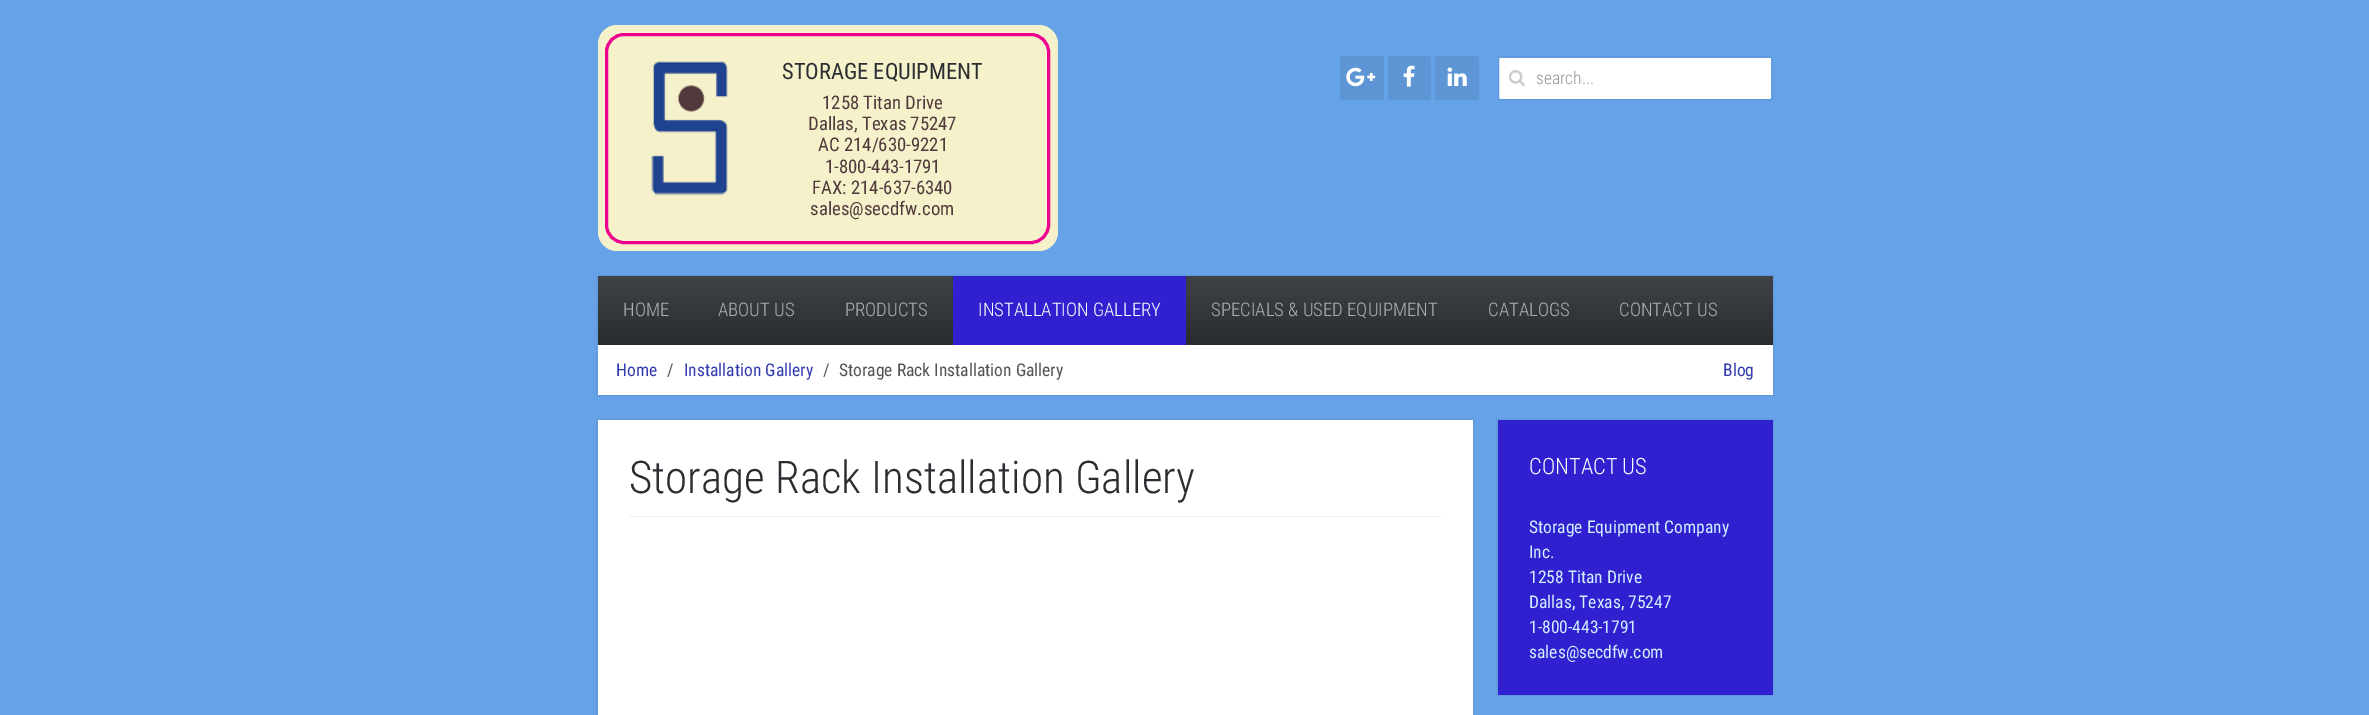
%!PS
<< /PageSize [2369 715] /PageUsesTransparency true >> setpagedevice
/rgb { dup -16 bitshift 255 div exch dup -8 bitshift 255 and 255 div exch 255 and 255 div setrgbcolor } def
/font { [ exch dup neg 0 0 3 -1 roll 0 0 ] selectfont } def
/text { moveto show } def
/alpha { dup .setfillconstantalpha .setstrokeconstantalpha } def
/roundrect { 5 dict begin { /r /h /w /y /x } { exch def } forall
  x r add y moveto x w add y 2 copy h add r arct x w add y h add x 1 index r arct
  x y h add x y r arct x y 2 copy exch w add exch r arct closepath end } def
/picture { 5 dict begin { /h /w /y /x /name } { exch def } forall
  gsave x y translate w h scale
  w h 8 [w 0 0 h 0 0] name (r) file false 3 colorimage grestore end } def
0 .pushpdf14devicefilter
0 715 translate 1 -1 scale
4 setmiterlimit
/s1 { /RobotoCondensed-Regular 22.5 font 16#2A2D31 rgb } def
/s2 { /RobotoCondensed-Regular 18.75 font 16#51393C rgb } def
/s3 { /RobotoCondensed-Light 17.5 font 16#92969A rgb } def
/s4 { /RobotoCondensed-Light 18.75 font 16#AEAFB1 rgb } def
/s5 { /RobotoCondensed-Light 18.75 font 16#FFFFFF rgb } def
/s6 { /RobotoCondensed-Regular 17.5 font 16#323BAD rgb } def
/s7 { /RobotoCondensed-Regular 17.5 font 16#515456 rgb } def
/s8 { /RobotoCondensed-Light 45 font 16#2A2D31 rgb } def
/s9 { /RobotoCondensed-Light 22.5 font 16#FFFFFF rgb } def
/s10 { /RobotoCondensed-Regular 17.5 font 16#D1EFFF rgb } def
16#66A2E8 rgb
0 0 2369 715 rectfill
16#F5F1CB rgb
598 25 460 226 19 roundrect fill
16#EC008D rgb
3 setlinewidth
606.5 34.5 442 208 17.5 roundrect stroke
(pic1.raw) 651 61 77 135 picture
s1
(STORAGE EQUIPMENT) 782 79 text
s2
(1258 Titan Drive) 822 109 text
(Dallas, Texas 75247) 808 130 text
(AC 214/630-9221) 818 151 text
(1-800-443-1791) 825 173 text
(FAX: 214-637-6340) 812 194 text
(sales@secdfw.com) 810 215 text
16#5E95D5 rgb
1340 56 44 44 2.5 roundrect fill
(pic2.raw) 1346 67 30 20 picture
1388 56 43 44 2.5 roundrect fill
(pic3.raw) 1403 65 12 22 picture
1435 56 44 44 2.5 roundrect fill
(pic4.raw) 1447 67 20 19 picture
16#FFFFFF rgb
1499 58 272 41 1 roundrect fill
16#6098DA rgb
1 setlinewidth
1498.5 56.5 274 43 2 roundrect stroke
(pic5.raw) 1508 70 17 17 picture
s3
(search...) 1536 84 text
0.06 alpha
16#000000 rgb
596.5 275.5 1177 120 rectstroke
1 alpha
16#FFFFFF rgb
598 345 1175 50 rectfill
gsave 598 276 moveto 1773 276 lineto 1773 345 lineto 598 345 lineto closepath clip newpath
<< /ShadingType 2 /ColorSpace /DeviceRGB /Coords [1185 276 1185 345] /Extend [true true] /Function << /FunctionType 2 /Domain [0 1] /C0 [0.247 0.259 0.275] /C1 [0.165 0.176 0.188] /N 1 >> >> shfill grestore
s4
(HOME) 623 316 text
(ABOUT US) 718 316 text
(PRODUCTS) 845 316 text
16#3020D0 rgb
953 276 233 69 rectfill
s5
(INSTALLATION GALLERY) 978 316 text
s4
(SPECIALS & USED EQUIPMENT) 1211 316 text
(CATALOGS) 1488 316 text
(CONTACT US) 1619 316 text
s6
(Home) 616 376 text
s7
(/) 667 376 text
s6
(Installation Gallery) 684 376 text
s7
(/) 823 376 text
(Storage Rack Installation Gallery) 839 376 text
s6
(Blog) 1723 376 text
0.06 alpha
16#000000 rgb
596.5 419.5 877 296 rectstroke
1 alpha
16#FFFFFF rgb
598 420 875 295 rectfill
16#F0F0F0 rgb
629 516 812 1 rectfill
s8
(Storage Rack Installation Gallery) 629 493 text
0.06 alpha
16#000000 rgb
1496.5 419.5 277 276 rectstroke
1 alpha
16#3020D0 rgb
1498 420 275 275 rectfill
16#2D1EC1 rgb
1529 494 212 1 rectfill
s9
(CONTACT US) 1529 474 text
s10
(Storage Equipment Company) 1529 533 text
(Inc.) 1529 558 text
(1258 Titan Drive) 1529 583 text
(Dallas, Texas, 75247) 1529 608 text
(1-800-443-1791) 1529 633 text
(sales@secdfw.com) 1529 658 text
.poppdf14devicefilter showpage
